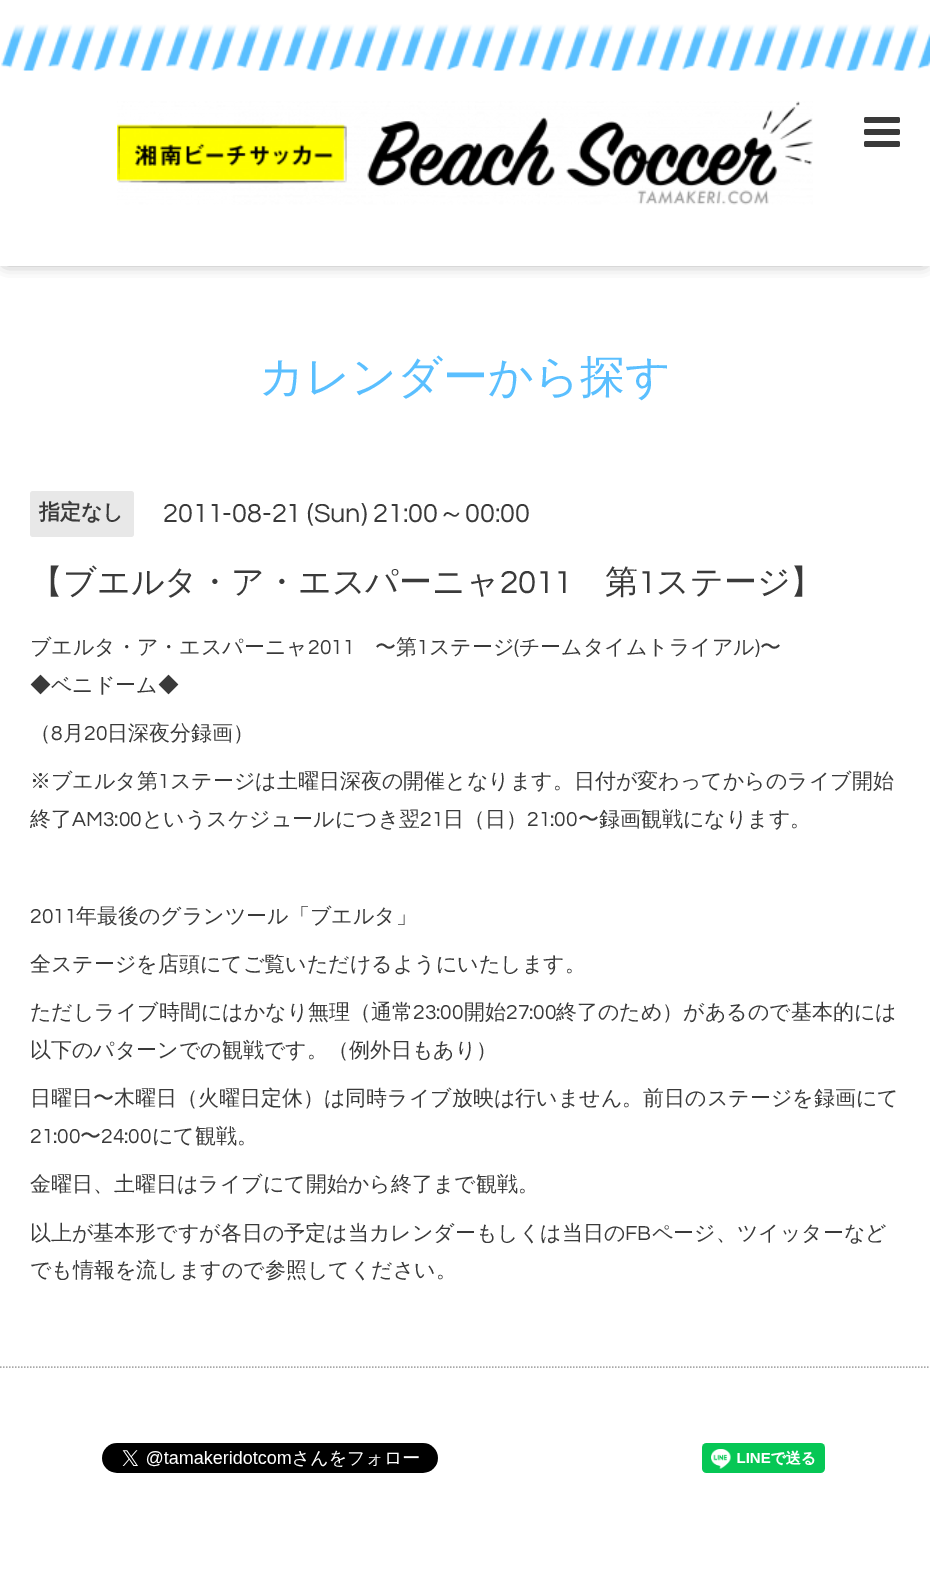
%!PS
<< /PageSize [930 1596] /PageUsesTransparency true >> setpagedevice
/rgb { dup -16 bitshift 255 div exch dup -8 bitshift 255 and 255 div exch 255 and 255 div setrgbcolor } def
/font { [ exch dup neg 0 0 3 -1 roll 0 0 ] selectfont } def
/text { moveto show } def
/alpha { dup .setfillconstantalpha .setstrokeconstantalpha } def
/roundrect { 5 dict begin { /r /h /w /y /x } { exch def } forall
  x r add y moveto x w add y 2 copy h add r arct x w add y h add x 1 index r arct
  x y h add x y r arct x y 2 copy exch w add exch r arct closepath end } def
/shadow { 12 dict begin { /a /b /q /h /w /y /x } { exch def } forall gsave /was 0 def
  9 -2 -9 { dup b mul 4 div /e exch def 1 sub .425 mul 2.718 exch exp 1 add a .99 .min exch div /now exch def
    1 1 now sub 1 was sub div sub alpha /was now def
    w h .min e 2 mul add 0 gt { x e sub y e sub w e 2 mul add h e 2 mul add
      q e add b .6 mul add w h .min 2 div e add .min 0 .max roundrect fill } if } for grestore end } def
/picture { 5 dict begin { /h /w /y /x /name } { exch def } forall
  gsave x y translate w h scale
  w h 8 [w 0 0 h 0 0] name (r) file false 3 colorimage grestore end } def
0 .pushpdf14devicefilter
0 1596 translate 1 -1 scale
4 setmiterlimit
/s1 { /WenQuanYiZenHei-Medium 45 font 16#5ABFFF rgb } def
/s2 { /WenQuanYiZenHei-Bold 21 font 16#3A3A3A rgb } def
/s3 { /Questrial-Regular 27 font 16#3A3A3A rgb } def
/s4 { /WenQuanYiZenHei-Medium 27 font 16#3A3A3A rgb } def
/s5 { /WenQuanYiZenHei-Medium 33 font 16#3A3A3A rgb } def
/s6 { /Questrial-Regular 33 font 16#3A3A3A rgb } def
/s7 { /WenQuanYiZenHei-Medium 21 font 16#3A3A3A rgb } def
/s8 { /Questrial-Regular 21 font 16#3A3A3A rgb } def
16#FFFFFF rgb
0 0 930 1596 rectfill
16#000000 rgb
6 8 918 253 0 7.5 0.6 shadow
16#FFFFFF rgb
0 0 930 266 rectfill
(pic1.raw) 1 24 929 47 picture
(pic2.raw) 117 101 696 104 picture
(pic3.raw) 864 117 36 30 picture
s1
(カレンダーから探す) 259 392 text
16#E8E8E8 rgb
30 491 104 46 3 roundrect fill
s2
(指定なし) 39 519 text
s3
(2011-08-21 \(Sun\) 21:00) 163 522 text
s4
(～) 438 522 text
s3
(00:00) 465 522 text
s5
(【ブエルタ・ア・エスパーニャ) 30 593 text
s6
(2011) 500 593 text
s5
(第) 605 593 text
s6
(1) 638 593 text
s5
(ステージ】) 656 593 text
s7
(ブエルタ・ア・エスパーニャ) 30 654 text
s8
(2011) 308 654 text
s7
(〜第) 375 654 text
s8
(1) 417 654 text
s7
(ステージ) 429 654 text
s8
(\() 514 654 text
s7
(チームタイムトライアル) 519 654 text
s8
(\)) 755 654 text
s7
(〜) 760 654 text
(◆ベニドーム◆) 30 692 text
(（) 30 740 text
s8
(8) 51 740 text
s7
(月) 63 740 text
s8
(20) 84 740 text
s7
(日深夜分録画）) 107 740 text
(※ブエルタ第) 30 788 text
s8
(1) 158 788 text
s7
(ステージは土曜日深夜の開催となります。日付が変わってからのライブ開始) 170 788 text
(終了) 30 826 text
s8
(AM3:00) 72 826 text
s7
(というスケジュールにつき翌) 142 826 text
s8
(21) 420 826 text
s7
(日（日）) 443 826 text
s8
(21:00) 527 826 text
s7
(〜録画観戦になります。) 578 826 text
s8
(2011) 30 923 text
s7
(年最後のグランツール「ブエルタ」) 76 923 text
(全ステージを店頭にてご覧いただけるようにいたします。) 30 971 text
(ただしライブ時間にはかなり無理（通常) 30 1019 text
s8
(23:00) 413 1019 text
s7
(開始) 464 1019 text
s8
(27:00) 506 1019 text
s7
(終了のため）があるので基本的には) 556 1019 text
(以下のパターンでの観戦です。（例外日もあり）) 30 1057 text
(日曜日〜木曜日（火曜日定休）は同時ライブ放映は行いません。前日のステージを録画にて) 30 1105 text
s8
(21:00) 30 1143 text
s7
(〜) 80 1143 text
s8
(24:00) 101 1143 text
s7
(にて観戦。) 152 1143 text
(金曜日、土曜日はライブにて開始から終了まで観戦。) 30 1191 text
(以上が基本形ですが各日の予定は当カレンダーもしくは当日の) 30 1240 text
s8
(FB) 625 1240 text
s7
(ページ、ツイッターなど) 652 1240 text
(でも情報を流しますので参照してください。) 30 1277 text
16#A9A9A9 rgb
1.5 setlinewidth
[1.5 1.5] 0 setdash
0 1367 moveto 930 1367 lineto stroke
(pic4.raw) 102 1443 336 30 picture
(pic5.raw) 702 1443 123 30 picture
.poppdf14devicefilter showpage
